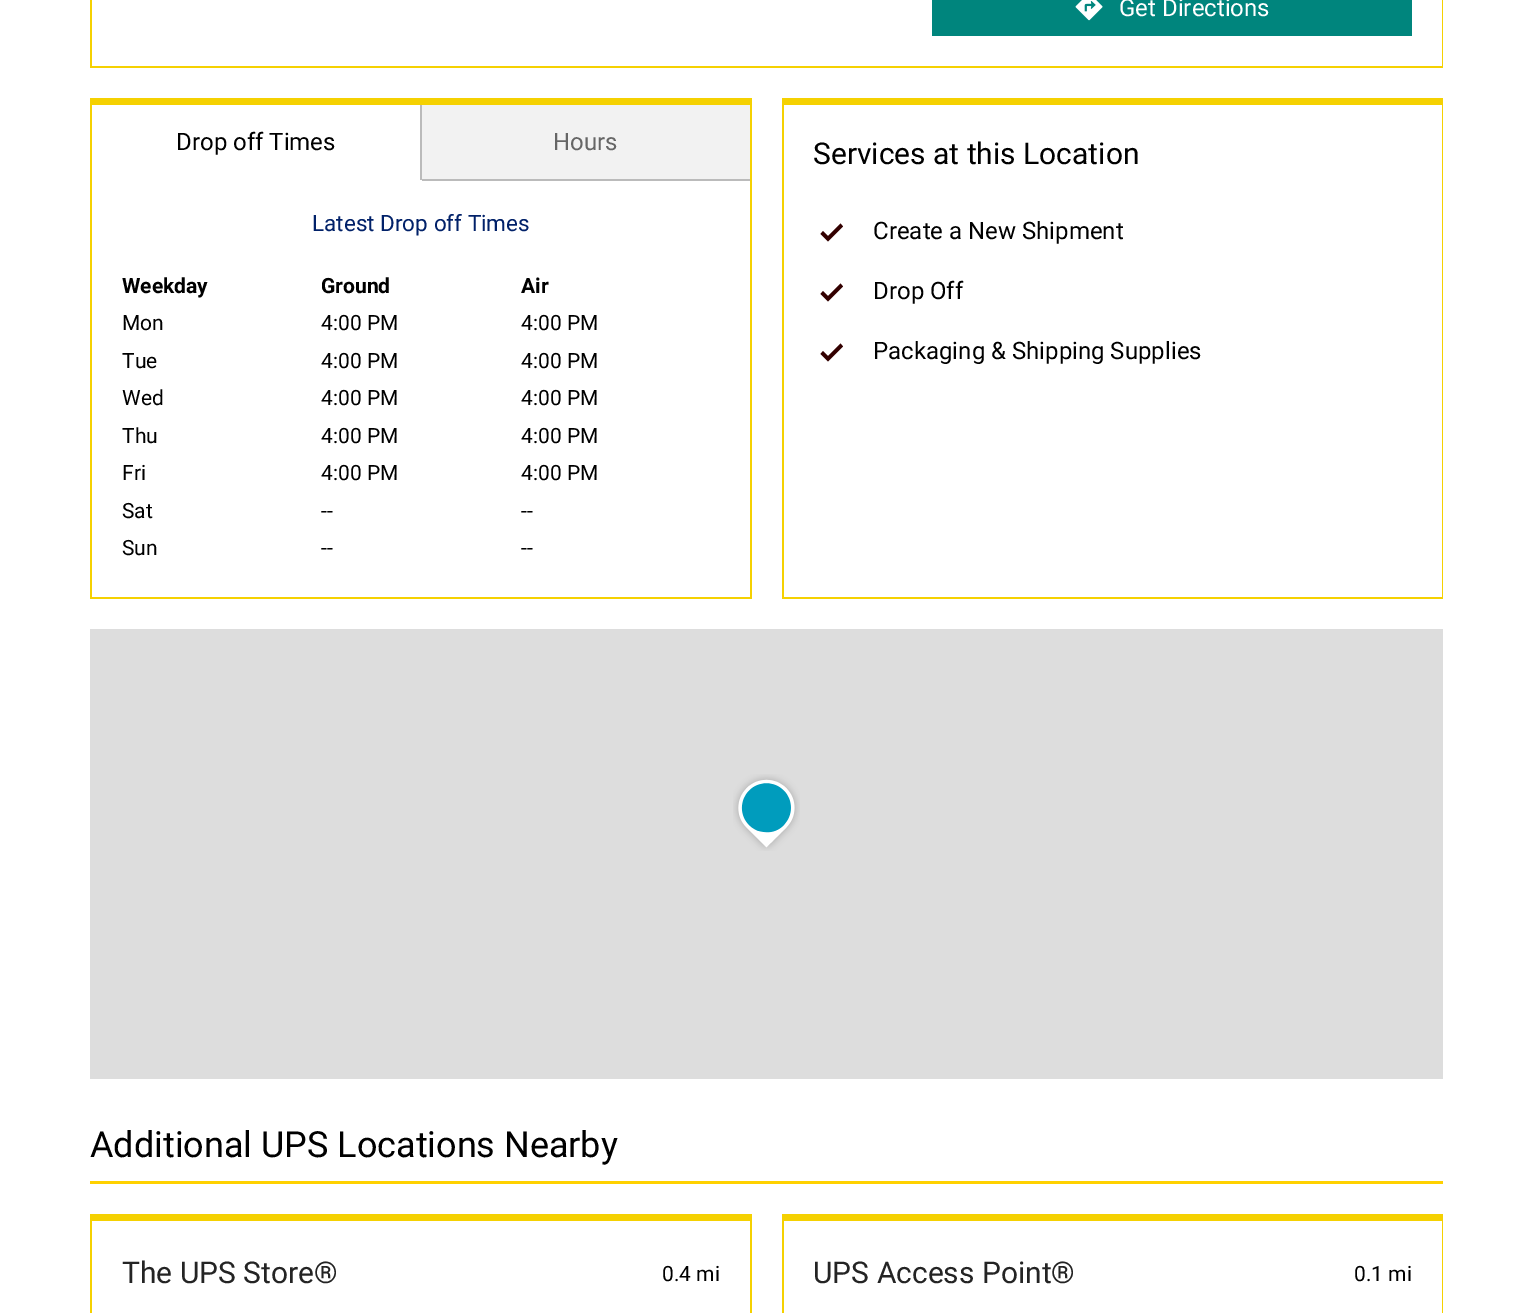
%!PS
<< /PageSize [1533 1313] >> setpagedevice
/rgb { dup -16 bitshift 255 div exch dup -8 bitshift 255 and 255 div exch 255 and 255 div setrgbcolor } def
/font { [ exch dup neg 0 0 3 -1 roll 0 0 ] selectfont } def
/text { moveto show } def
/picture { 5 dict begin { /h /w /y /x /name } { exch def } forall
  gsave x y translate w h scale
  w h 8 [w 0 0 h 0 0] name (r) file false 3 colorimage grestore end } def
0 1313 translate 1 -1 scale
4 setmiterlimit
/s1 { /Roboto-Regular 24 font 16#FFFFFF rgb } def
/s2 { /Roboto-Regular 24 font 16#000000 rgb } def
/s3 { /Roboto-Regular 24 font 16#666666 rgb } def
/s4 { /Roboto-Regular 22.5 font 16#012169 rgb } def
/s5 { /Roboto-Bold 21 font 16#000000 rgb } def
/s6 { /Roboto-Regular 21 font 16#000000 rgb } def
/s7 { /Roboto-Regular 30 font 16#000000 rgb } def
/s8 { /Roboto-Regular 36 font 16#000000 rgb } def
/s9 { /Roboto-Regular 30 font 16#242424 rgb } def
16#FFFFFF rgb
0 0 1533 1313 rectfill
16#F5D101 rgb
1442 0 1 68 rectfill
90 66 1353 2 rectfill
90 0 2 68 rectfill
16#00857D rgb
932 0 480 36 rectfill
(pic1.raw) 1075 0 28 21 picture
s1
(Get Directions) 1119 16 text
16#F5D101 rgb
90 98 662 7 rectfill
750 98 2 501 rectfill
90 597 662 2 rectfill
90 98 2 501 rectfill
16#BBBBBB rgb
420 105 2 75 rectfill
s2
(Drop off Times) 176 150 text
16#F2F2F2 rgb
422 105 328 74 rectfill
16#BBBBBB rgb
422 179 328 2 rectfill
s3
(Hours) 553 150 text
s4
(Latest Drop off Times) 312 231 text
s5
(Weekday) 122 293 text
(Ground) 321 293 text
(Air) 521 293 text
s6
(Mon) 122 330 text
(4:00 PM) 321 330 text
(4:00 PM) 521 330 text
(Tue) 122 368 text
(4:00 PM) 321 368 text
(4:00 PM) 521 368 text
(Wed) 122 405 text
(4:00 PM) 321 405 text
(4:00 PM) 521 405 text
(Thu) 122 443 text
(4:00 PM) 321 443 text
(4:00 PM) 521 443 text
(Fri) 122 480 text
(4:00 PM) 321 480 text
(4:00 PM) 521 480 text
(Sat) 122 518 text
(--) 321 518 text
(--) 521 518 text
(Sun) 122 555 text
(--) 321 555 text
(--) 521 555 text
16#F5D101 rgb
782 98 661 7 rectfill
1442 98 1 501 rectfill
782 597 661 2 rectfill
782 98 2 501 rectfill
s7
(Services at this Location) 813 164 text
16#330000 rgb
843 226.5 moveto 840.5 223.5 lineto 828 236 lineto 823 231 lineto 820.5 234 lineto 828 241.5 lineto closepath fill
s2
(Create a New Shipment) 873 239 text
16#330000 rgb
843 286.5 moveto 840.5 283.5 lineto 828 296 lineto 823 291 lineto 820.5 294 lineto 828 301.5 lineto closepath fill
s2
(Drop Off) 873 299 text
16#330000 rgb
843 346.5 moveto 840.5 343.5 lineto 828 356 lineto 823 351 lineto 820.5 354 lineto 828 361.5 lineto closepath fill
s2
(Packaging & Shipping Supplies) 873 359 text
16#DDDDDD rgb
90 629 1353 450 rectfill
(pic2.raw) 733 774 67 77 picture
16#FFD100 rgb
90 1181 1353 3 rectfill
s8
(Additional UPS Locations Nearby) 90 1157 text
16#F5D101 rgb
90 1214 662 7 rectfill
750 1214 2 99 rectfill
90 1214 2 99 rectfill
s9
(The UPS Store®) 122 1283 text
s6
(0.4 mi) 662 1281 text
16#F5D101 rgb
782 1214 661 7 rectfill
1442 1214 1 99 rectfill
782 1214 2 99 rectfill
s9
(UPS Access Point®) 813 1283 text
s6
(0.1 mi) 1354 1281 text
showpage
